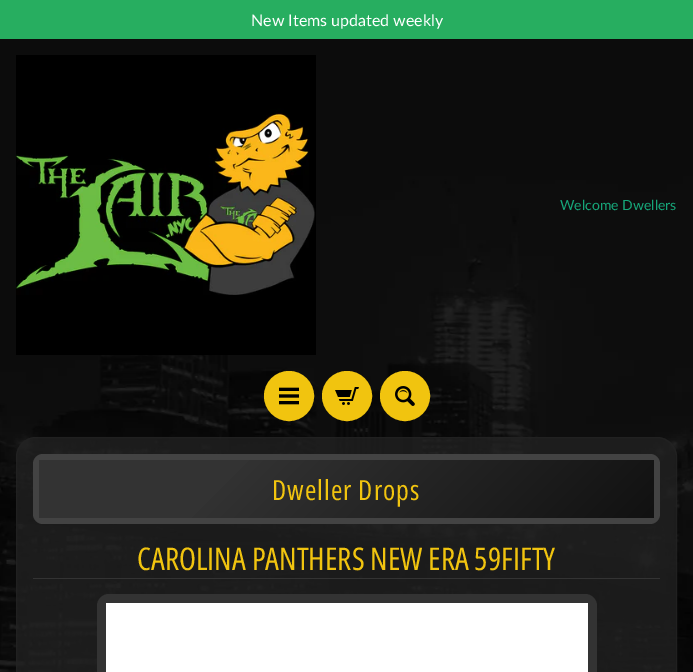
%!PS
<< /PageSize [693 672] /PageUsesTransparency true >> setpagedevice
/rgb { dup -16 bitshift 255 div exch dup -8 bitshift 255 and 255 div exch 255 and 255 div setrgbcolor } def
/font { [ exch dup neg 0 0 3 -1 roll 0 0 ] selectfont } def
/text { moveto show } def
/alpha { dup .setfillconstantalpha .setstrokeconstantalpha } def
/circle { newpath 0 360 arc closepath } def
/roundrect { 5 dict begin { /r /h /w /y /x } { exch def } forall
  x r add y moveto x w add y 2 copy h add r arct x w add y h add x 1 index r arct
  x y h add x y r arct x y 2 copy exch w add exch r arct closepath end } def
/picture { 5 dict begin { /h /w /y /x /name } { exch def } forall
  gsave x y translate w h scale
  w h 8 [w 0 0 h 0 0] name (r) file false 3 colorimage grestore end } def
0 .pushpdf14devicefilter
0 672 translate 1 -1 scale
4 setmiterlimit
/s1 { /Lato-Regular 16 font 16#FFFFFF rgb } def
/s2 { /Lato-Regular 14 font 16#16A679 rgb } def
/s3 { /OpenSansCondensed-Regular 31.25 font 16#F1C40F rgb } def
16#FFFFFF rgb
0 0 693 672 rectfill
(pic1.raw) 0 39 693 633 picture
16#27AE60 rgb
0 0 693 39 rectfill
s1
(New Items updated weekly) 251 26 text
(pic2.raw) 16 55 300 300 picture
s2
(Welcome Dwellers) 560 210 text
16#F1C40F rgb
289 396 23.5 circle gsave fill grestore
3 setlinewidth
stroke
(pic3.raw) 279 387 20 18 picture
347 396 23.5 circle gsave fill grestore
stroke
(pic4.raw) 335 387 24 18 picture
405 396 23.5 circle gsave fill grestore
stroke
(pic5.raw) 395 386 20 20 picture
0.75 alpha
16#222222 rgb
16 437 661 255 20 roundrect fill
0.7 alpha
1 setlinewidth
16.5 437.5 660 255 19.5 roundrect stroke
1 alpha
16#434343 rgb
33 454 627 70 10 roundrect fill
gsave 39 460 moveto 654 460 lineto 654 518 lineto 39 518 lineto closepath clip newpath
<< /ShadingType 2 /ColorSpace /DeviceRGB /Coords [178 321 515 657] /Extend [true true] /Function << /FunctionType 3 /Domain [0 1] /Functions [<< /FunctionType 2 /Domain [0 1] /C0 [0.2 0.2 0.2] /C1 [0.2 0.2 0.2] /N 1 >> << /FunctionType 2 /Domain [0 1] /C0 [0.2 0.2 0.2] /C1 [0.067 0.067 0.067] /N 1 >>] /Bounds [0.3] /Encode [0 1 0 1] >> >> shfill grestore
/OpenSansCondensed-Regular 27.75 font
16#F1C40F rgb
272 500 moveto 1 0 (Dweller Drops) ashow
16#333333 rgb
33 578 627 1 rectfill
s3
(CAROLINA PANTHERS NEW ERA 59FIFTY) 137 570 text
16#333333 rgb
97 594 500 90 12 roundrect fill
16#FFFFFF rgb
106 603 482 69 rectfill
.poppdf14devicefilter showpage
